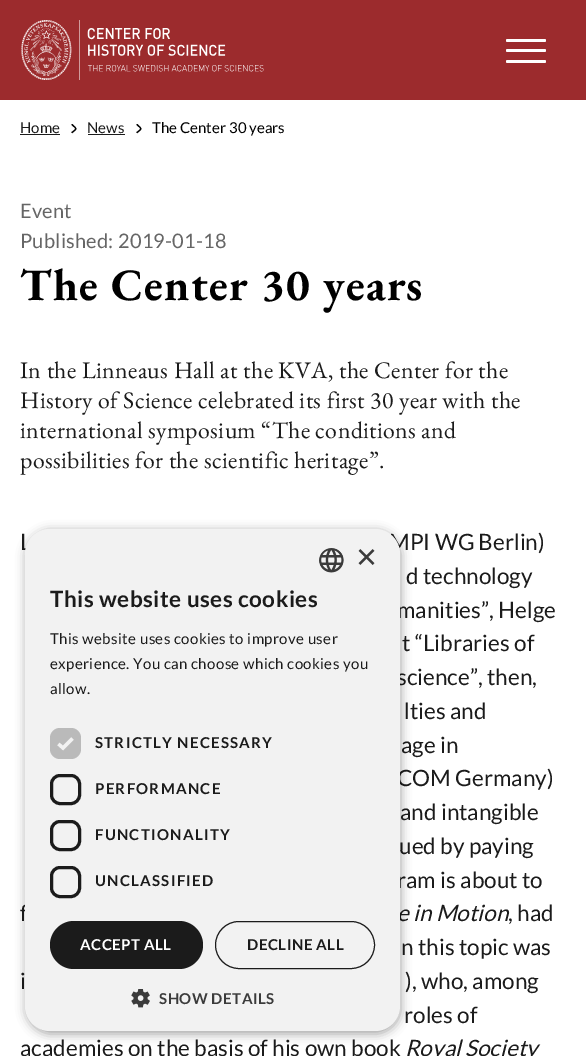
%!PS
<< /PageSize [586 1056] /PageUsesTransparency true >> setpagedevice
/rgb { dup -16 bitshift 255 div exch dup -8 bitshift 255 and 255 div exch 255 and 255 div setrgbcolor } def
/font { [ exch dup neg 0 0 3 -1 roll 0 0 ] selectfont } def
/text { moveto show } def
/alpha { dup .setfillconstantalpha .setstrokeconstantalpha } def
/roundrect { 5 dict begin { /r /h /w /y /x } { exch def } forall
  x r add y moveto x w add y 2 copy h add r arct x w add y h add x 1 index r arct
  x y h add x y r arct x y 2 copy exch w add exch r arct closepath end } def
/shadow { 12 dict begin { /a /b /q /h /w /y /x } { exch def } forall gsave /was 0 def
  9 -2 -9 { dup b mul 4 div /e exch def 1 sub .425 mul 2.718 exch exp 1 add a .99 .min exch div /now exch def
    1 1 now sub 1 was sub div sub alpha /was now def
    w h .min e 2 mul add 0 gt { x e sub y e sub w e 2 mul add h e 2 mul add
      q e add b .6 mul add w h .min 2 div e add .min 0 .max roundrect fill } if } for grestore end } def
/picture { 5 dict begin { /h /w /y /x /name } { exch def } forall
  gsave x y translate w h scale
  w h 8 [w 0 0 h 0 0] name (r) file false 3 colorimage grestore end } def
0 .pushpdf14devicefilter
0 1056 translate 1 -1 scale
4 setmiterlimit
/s1 { /Lato-Regular 15 font 16#1B1B1B rgb } def
/s2 { /Lato-Regular 15 font 16#000000 rgb } def
/s3 { /Lato-Regular 22.5 font 16#1B1B1B rgb } def
/s4 { /Lato-Italic 22.5 font 16#1B1B1B rgb } def
/s5 { /LiberationSans-Regular 36 font 16#3B3B3B rgb } def
16#FFFFFF rgb
0 0 586 1056 rectfill
16#9C2B2D rgb
0 0 586 100 rectfill
(pic1.raw) 21 20 243 60 picture
16#FFFFFF rgb
506 39 40 3 1.5 roundrect fill
506 49 40 3 1.5 roundrect fill
506 60 40 3 1.5 roundrect fill
s1
(Home) 20 133 text
20 134 40 1 rectfill
16#000000 rgb
1.2 setlinewidth
1 setlinecap
1 setlinejoin
72 124.5 moveto 77 129.5 77.5 128 72 132.5 curveto stroke
s1
(News) 87 133 text
88 134 37 1 rectfill
16#000000 rgb
137 124.5 moveto 142 129.5 142.5 128 137 132.5 curveto stroke
(The Center 30 years) 152 133 text
/Lato-Regular 20 font
16#666666 rgb
20 218 moveto 0.25 0 (Event) ashow
20 248 moveto 0.25 0 (Published: 2019-01-18) ashow
/EBGaramond-Bold 45 font
16#000000 rgb
20 300 moveto 1.25 0 (The Center 30 years) ashow
/EBGaramond-Regular 23.75 font
16#1B1B1B rgb
20 378 moveto 0.38 0 (In the Linneaus Hall at the KVA, the Center for the) ashow
20 408 moveto 0.38 0 (History of Science celebrated its first 30 year with the) ashow
20 438 moveto 0.38 0 (international symposium “The conditions and) ashow
20 468 moveto 0.38 0 (possibilities for the scientific heritage”.) ashow
s3
(L) 20 550 text
(MPI WG Berlin\)) 389 550 text
(d technology) 406 584 text
(manities”, Helge) 397 618 text
(t “Libraries of) 402 651 text
(science”, then,) 397 685 text
(lties and) 404 719 text
(age in) 401 753 text
(COM Germany\)) 397 786 text
(and intangible) 400 820 text
(ued by paying) 399 854 text
(ram is about to) 397 888 text
(f) 20 921 text
s4
(e in Motion) 397 921 text
s3
(, had) 508 921 text
(n this topic was) 401 955 text
(i) 20 989 text
(\), who, among) 405 989 text
(roles of) 404 1023 text
(academies on the basis of his own book) 20 1056 text
s4
(Royal Society) 405 1056 text
16#000000 rgb
26 531 375 503 25 5 0.35 shadow
16#F2F2F2 rgb
25 529 375 502 25 roundrect fill
(pic2.raw) 319 548 25 25 picture
s5
(×) 356 569 text
/Lato-Bold 22.5 font
16#1B1B1B rgb
50 607 moveto 0.5 0 (This website uses cookies) ashow
/Lato-Regular 15 font
50 644 moveto 0.38 0 (This website uses cookies to improve user) ashow
50 669 moveto 0.38 0 (experience. You can choose which cookies you) ashow
50 694 moveto 0.38 0 (allow.) ashow
16#BABABA rgb
50 728 31 31 10 roundrect fill
16#F2F2F2 rgb
3.3 setlinewidth
0 setlinecap
0 setlinejoin
58.5 744 moveto 63 748 lineto 72.5 738.5 lineto stroke
/Lato-Bold 15 font
16#1B1B1B rgb
95 748 moveto 1.25 0 (STRICTLY NECESSARY) ashow
3 setlinewidth
51.5 775.5 28 28 8.5 roundrect stroke
95 794 moveto 1.25 0 (PERFORMANCE) ashow
51.5 821.5 28 28 8.5 roundrect stroke
95 840 moveto 1.25 0 (FUNCTIONALITY) ashow
51.5 867.5 28 29 8.5 roundrect stroke
95 886 moveto 1.25 0 (UNCLASSIFIED) ashow
50 921 153 48 24 roundrect fill
16#FFFFFF rgb
80 950 moveto 0.5 0 (ACCEPT ALL) ashow
16#1B1B1B rgb
1 setlinewidth
215.5 921.5 159 47 23.5 roundrect stroke
247 950 moveto 0.5 0 (DECLINE ALL) ashow
(pic3.raw) 131 989 19 19 picture
16#3B3B3B rgb
159 1004 moveto 0.5 0 (SHOW DETAILS) ashow
.poppdf14devicefilter showpage
